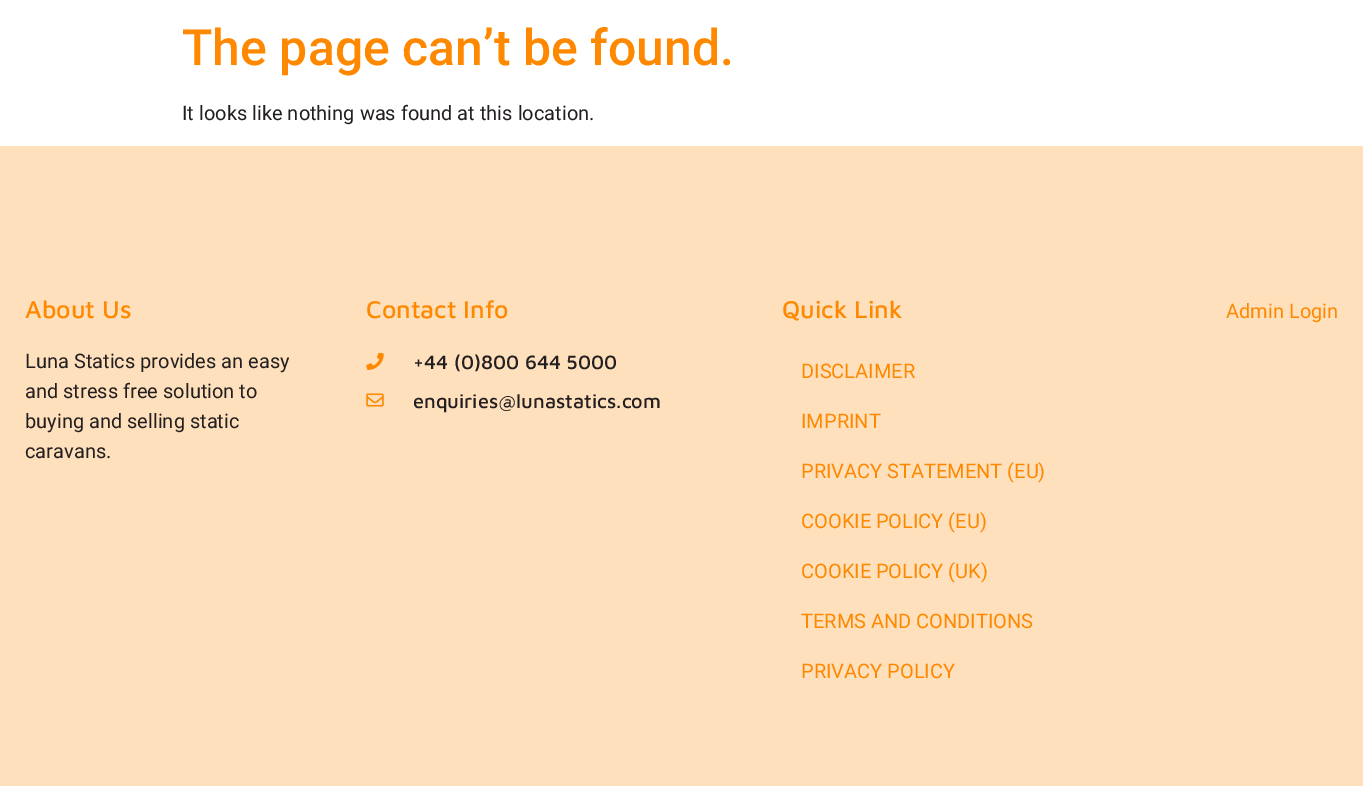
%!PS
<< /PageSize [1363 786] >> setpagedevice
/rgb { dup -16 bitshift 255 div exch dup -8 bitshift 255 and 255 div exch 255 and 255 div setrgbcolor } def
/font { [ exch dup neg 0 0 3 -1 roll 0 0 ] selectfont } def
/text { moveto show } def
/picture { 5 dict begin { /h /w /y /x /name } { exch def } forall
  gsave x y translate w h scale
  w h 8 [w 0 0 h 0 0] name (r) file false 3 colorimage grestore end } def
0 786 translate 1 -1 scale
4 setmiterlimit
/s1 { /Roboto-Medium 50 font 16#FE8800 rgb } def
/s2 { /Roboto-Regular 20 font 16#231F20 rgb } def
/s3 { /MavenPro-Medium 25 font 16#FE8800 rgb } def
/s4 { /MavenPro-Medium 20 font 16#231F20 rgb } def
/s5 { /Roboto-Regular 20 font 16#FE8800 rgb } def
16#FFFFFF rgb
0 0 1363 786 rectfill
s1
(The page can’t be found.) 182 65 text
s2
(It looks like nothing was found at this location.) 182 120 text
16#FFE0BC rgb
0 146 1363 640 rectfill
s3
(About Us) 25 318 text
s2
(Luna Statics provides an easy) 25 368 text
(and stress free solution to) 25 398 text
(buying and selling static) 25 428 text
(caravans.) 25 458 text
s3
(Contact Info) 366 318 text
(pic1.raw) 366 353 18 17 picture
s4
(+44 \(0\)800 644 5000) 413 369 text
(pic2.raw) 366 393 18 14 picture
(enquiries@lunastatics.com) 413 408 text
s3
(Quick Link) 782 318 text
s5
(DISCLAIMER) 801 378 text
(IMPRINT) 801 428 text
(PRIVACY STATEMENT \(EU\)) 801 478 text
(COOKIE POLICY \(EU\)) 801 528 text
(COOKIE POLICY \(UK\)) 801 578 text
(TERMS AND CONDITIONS) 801 628 text
(PRIVACY POLICY) 801 678 text
(Admin Login) 1226 318 text
showpage
